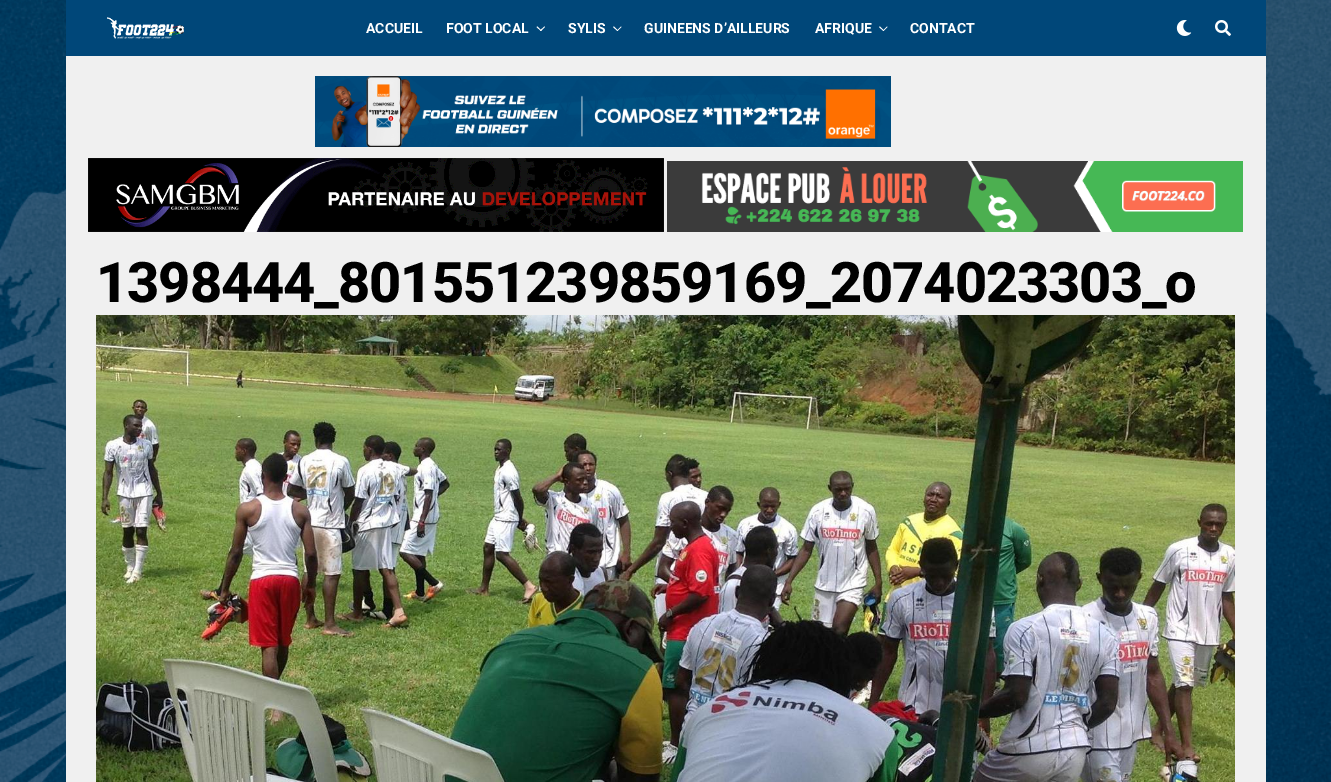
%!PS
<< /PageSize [1331 782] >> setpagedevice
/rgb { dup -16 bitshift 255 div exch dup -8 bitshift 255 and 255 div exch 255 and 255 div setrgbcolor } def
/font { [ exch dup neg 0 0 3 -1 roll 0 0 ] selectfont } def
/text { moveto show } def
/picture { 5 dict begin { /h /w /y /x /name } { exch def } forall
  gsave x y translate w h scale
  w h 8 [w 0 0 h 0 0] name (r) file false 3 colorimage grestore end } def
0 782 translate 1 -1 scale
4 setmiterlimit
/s1 { /Roboto-Bold 14 font 16#FFFFFF rgb } def
16#FFFFFF rgb
0 0 1331 782 rectfill
(pic1.raw) 0 0 1331 782 picture
16#004779 rgb
66 0 1200 56 rectfill
(pic2.raw) 107 17 77 22 picture
s1
(ACCUEIL) 366 33 text
(FOOT LOCAL) 446 33 text
544.5 26.5 moveto 545 27 lineto 541 31 lineto 540 30.5 lineto closepath fill
537.5 26.5 moveto 541.5 30.5 lineto 541 31 lineto 536.5 27 lineto closepath fill
(SYLIS) 568 33 text
621 26.5 moveto 621.5 27 lineto 617.5 31 lineto 617 30.5 lineto closepath fill
614 26.5 moveto 618 30.5 lineto 617.5 31 lineto 613 27 lineto closepath fill
(GUINEENS D’AILLEURS) 644 33 text
(AFRIQUE) 815 33 text
887 26.5 moveto 887.5 27 lineto 883.5 31 lineto 883 30.5 lineto closepath fill
880 26.5 moveto 884 30.5 lineto 883.5 31 lineto 879 27 lineto closepath fill
(CONTACT) 910 33 text
(pic3.raw) 1176 20 16 16 picture
(pic4.raw) 1215 20 16 16 picture
16#F0F0F0 rgb
66 56 1200 726 rectfill
(pic5.raw) 315 76 576 71 picture
(pic6.raw) 88 158 576 74 picture
(pic7.raw) 667 161 576 71 picture
/Roboto-ExtraBold 56 font
16#000000 rgb
96 302 moveto -1.1 0 (1398444_801551239859169_2074023303_o) ashow
(pic8.raw) 96 315 1139 467 picture
showpage
